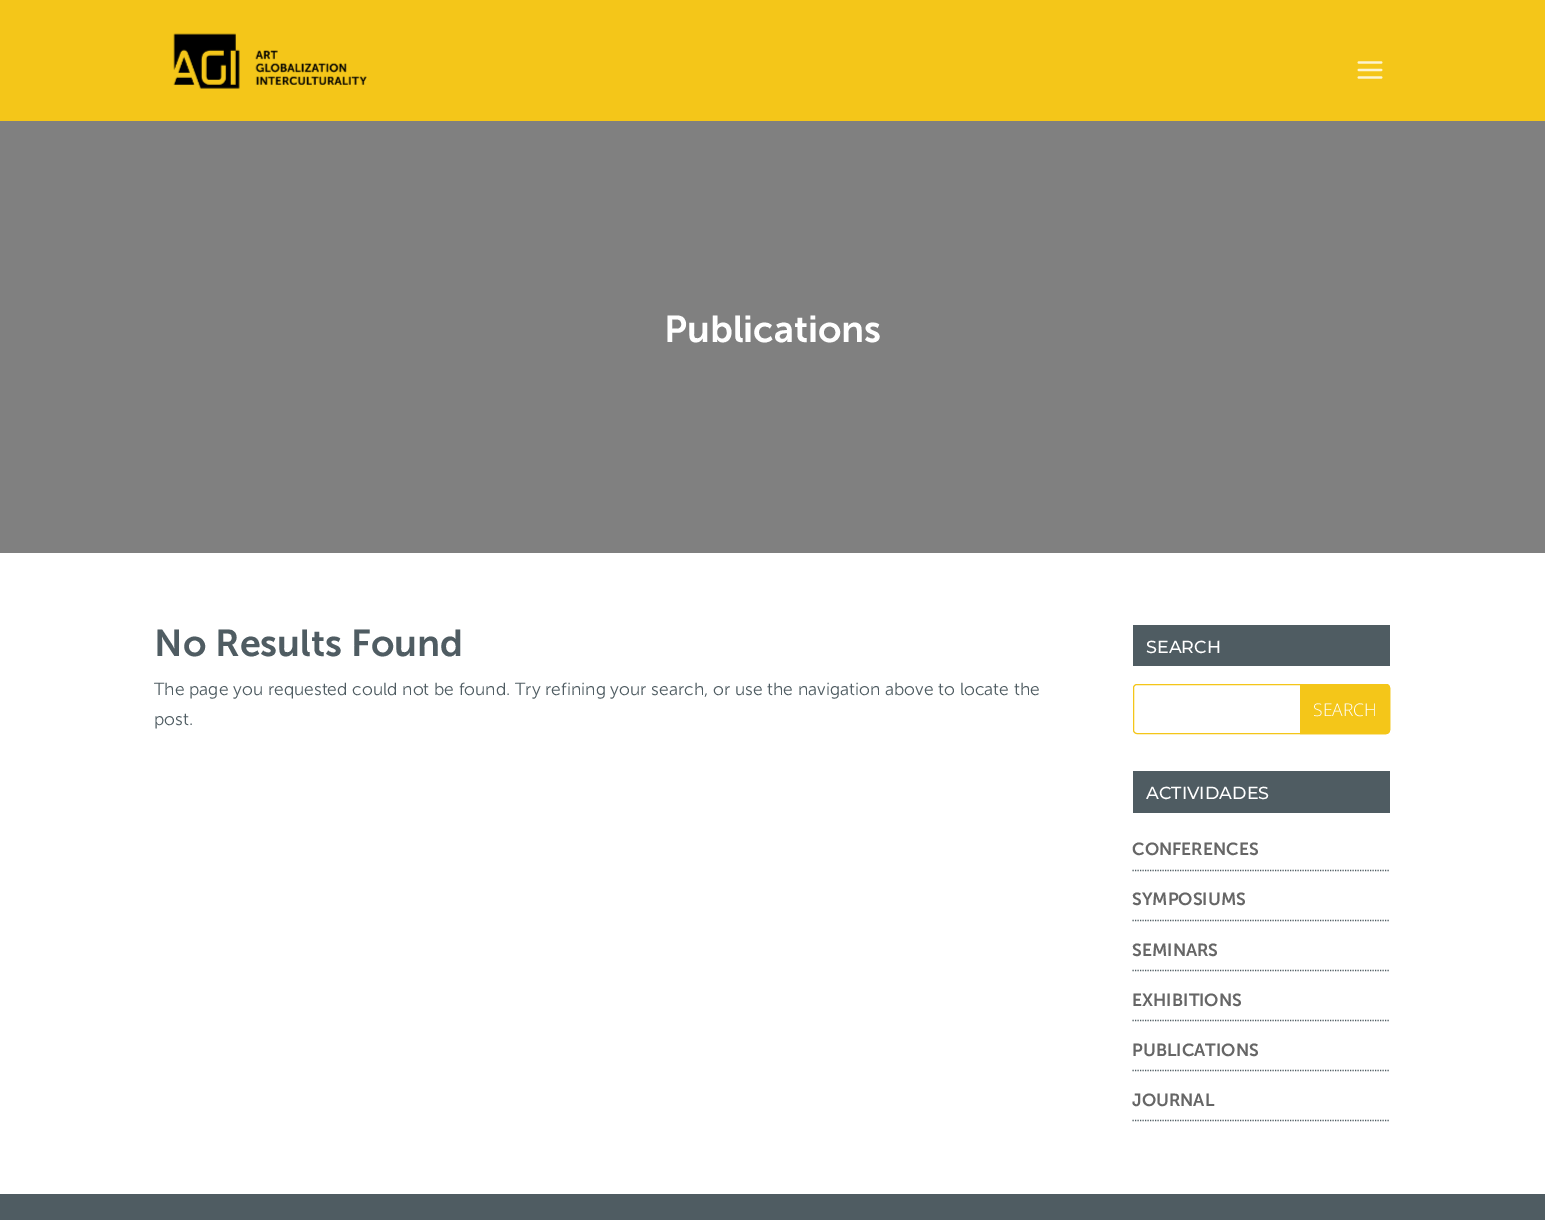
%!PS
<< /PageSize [1545 1220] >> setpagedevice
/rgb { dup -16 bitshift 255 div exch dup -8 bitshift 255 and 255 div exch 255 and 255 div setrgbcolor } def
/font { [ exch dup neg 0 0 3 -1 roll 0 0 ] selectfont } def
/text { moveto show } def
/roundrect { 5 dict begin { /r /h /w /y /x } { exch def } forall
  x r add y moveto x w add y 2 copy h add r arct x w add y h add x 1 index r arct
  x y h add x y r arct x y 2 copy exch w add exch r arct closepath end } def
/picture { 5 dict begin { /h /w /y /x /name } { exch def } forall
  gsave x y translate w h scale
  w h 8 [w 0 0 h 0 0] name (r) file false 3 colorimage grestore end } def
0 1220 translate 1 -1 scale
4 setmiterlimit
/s1 { /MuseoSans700-SemiBold 37.5 font 16#FFFFFF rgb } def
/s2 { /MuseoSans700-SemiBold 37.5 font 16#4F5C62 rgb } def
/s3 { /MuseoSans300-Light 17.5 font 16#4F5C62 rgb } def
/s4 { /Montserrat-Medium 17.5 font 16#FFFFFF rgb } def
/s5 { /OpenSans-Light 17.5 font 16#FFFFFF rgb } def
/s6 { /MuseoSans700-SemiBold 17.5 font 16#666666 rgb } def
16#FFFFFF rgb
0 0 1545 1220 rectfill
16#F4C619 rgb
0 0 1545 121 rectfill
(pic1.raw) 173 33 194 56 picture
(pic2.raw) 1357 61 26 18 picture
16#808080 rgb
0 121 1545 432 rectfill
s1
(Publications) 664 342 text
s2
(No Results Found) 154 656 text
s3
(The page you requested could not be found. Try refining your search, or use the navigation above to locate the) 154 695 text
(post.) 154 725 text
1133 625 257 41 rectfill
s4
(SEARCH) 1146 653 text
16#F4C619 rgb
1133.5 684.5 256 49 3.5 roundrect stroke
1300.5 684.5 moveto 1386 684.5 lineto 1388 684.5 1389.5 686 1389.5 688 curveto 1389.5 730 lineto 1389.5 732 1388 733.5 1386 733.5 curveto 1300.5 733.5 lineto closepath gsave fill grestore
stroke
s5
(SEARCH) 1313 716 text
16#4F5C62 rgb
1133 771 257 42 rectfill
s4
(ACTIVIDADES) 1146 799 text
16#4F5C62 rgb
1.2 setlinewidth
[1.25 1.25] 0 setdash
1132.5 870.5 moveto 1390 870.5 lineto stroke
s6
(CONFERENCES) 1132 855 text
16#4F5C62 rgb
1132.5 920.5 moveto 1390 920.5 lineto stroke
s6
(SYMPOSIUMS) 1132 905 text
16#4F5C62 rgb
1132.5 970.5 moveto 1390 970.5 lineto stroke
s6
(SEMINARS) 1132 956 text
16#4F5C62 rgb
1132.5 1020.5 moveto 1390 1020.5 lineto stroke
s6
(EXHIBITIONS) 1132 1006 text
16#4F5C62 rgb
1132.5 1070.5 moveto 1390 1070.5 lineto stroke
s6
(PUBLICATIONS) 1132 1056 text
16#4F5C62 rgb
1132.5 1120.5 moveto 1390 1120.5 lineto stroke
s6
(JOURNAL) 1132 1106 text
16#4F5C62 rgb
0 1194 1545 26 rectfill
showpage
